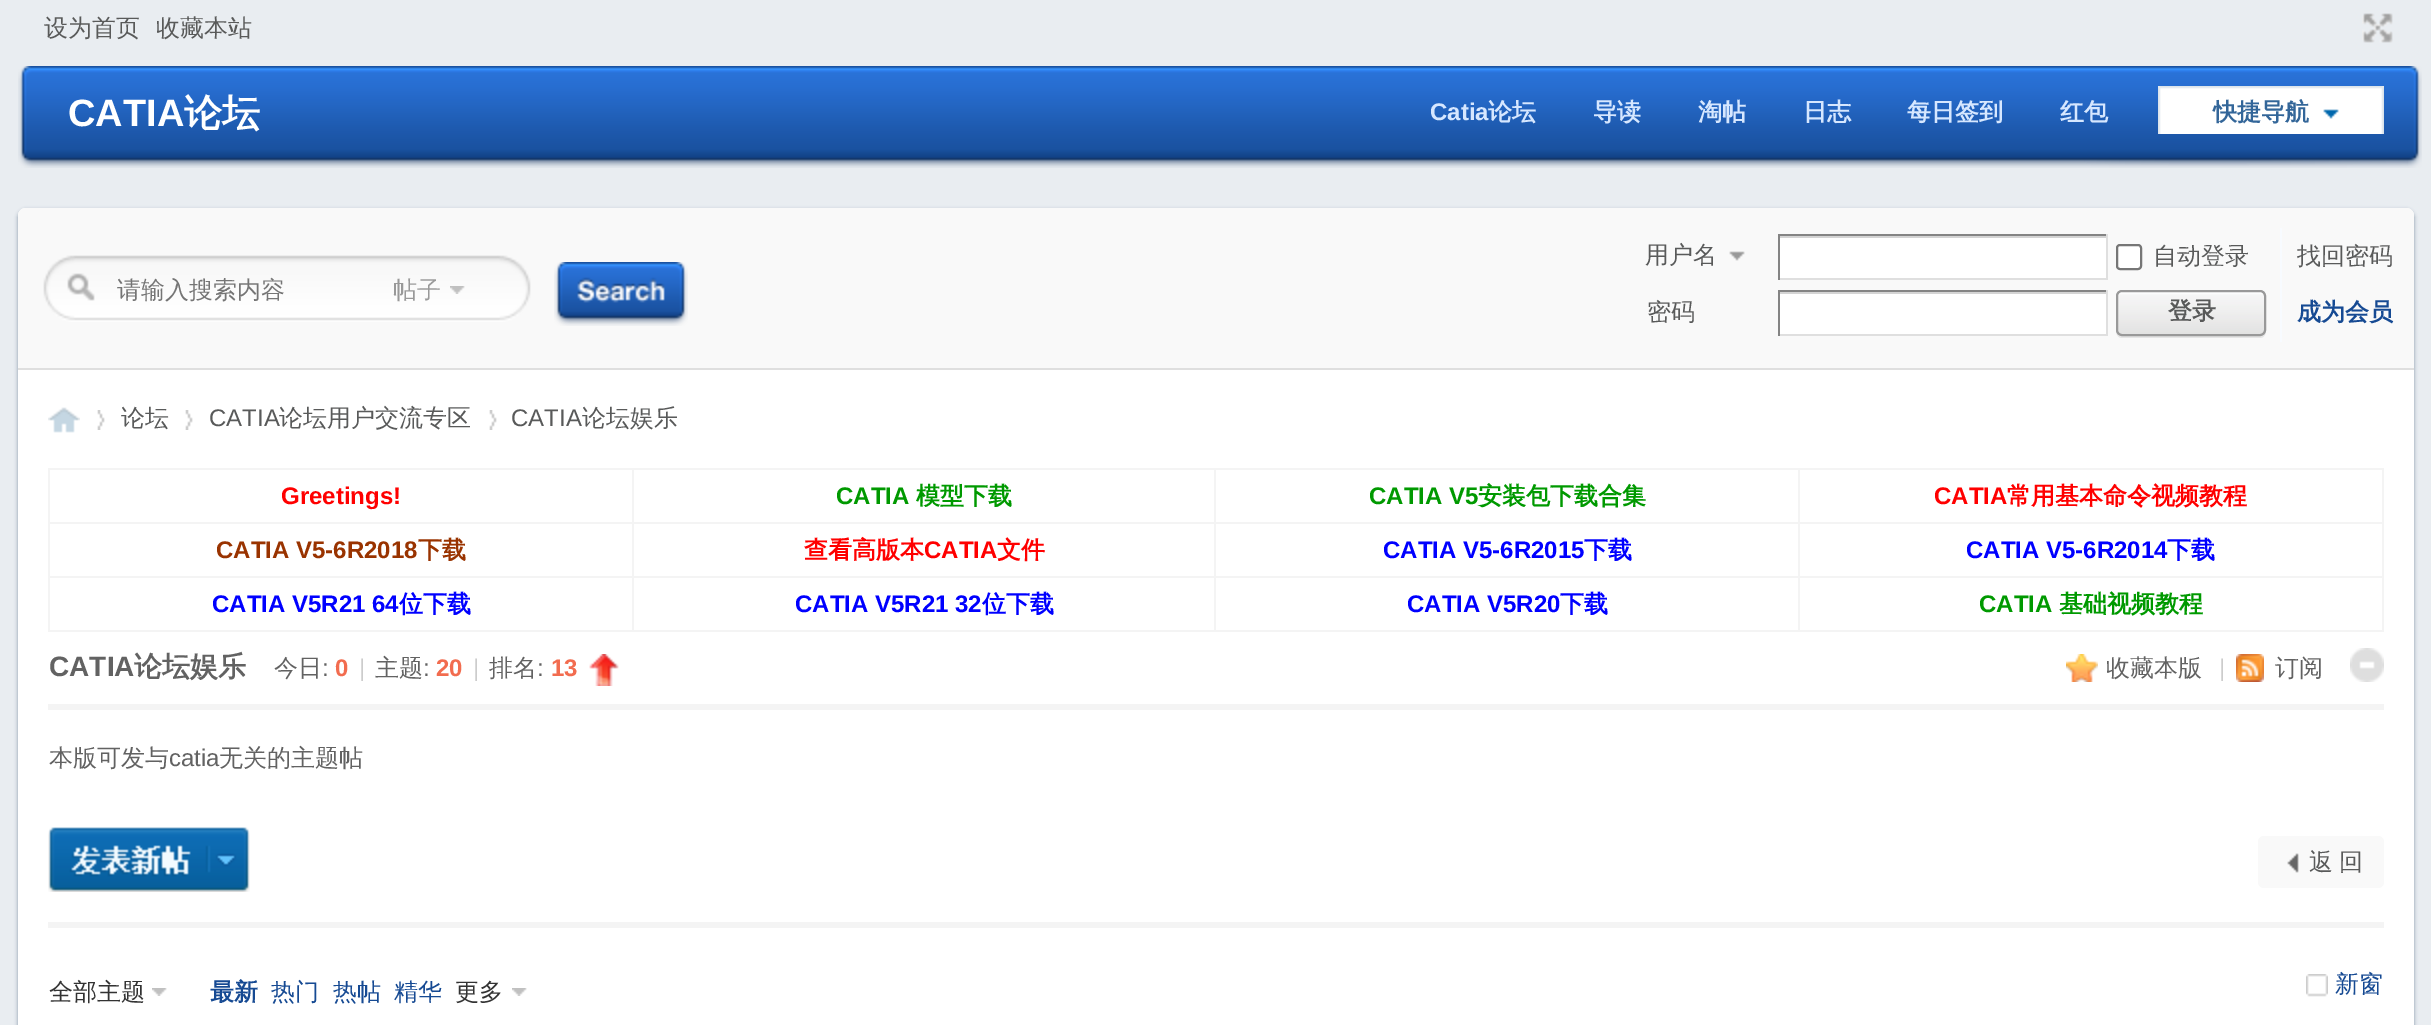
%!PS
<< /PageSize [2431 1025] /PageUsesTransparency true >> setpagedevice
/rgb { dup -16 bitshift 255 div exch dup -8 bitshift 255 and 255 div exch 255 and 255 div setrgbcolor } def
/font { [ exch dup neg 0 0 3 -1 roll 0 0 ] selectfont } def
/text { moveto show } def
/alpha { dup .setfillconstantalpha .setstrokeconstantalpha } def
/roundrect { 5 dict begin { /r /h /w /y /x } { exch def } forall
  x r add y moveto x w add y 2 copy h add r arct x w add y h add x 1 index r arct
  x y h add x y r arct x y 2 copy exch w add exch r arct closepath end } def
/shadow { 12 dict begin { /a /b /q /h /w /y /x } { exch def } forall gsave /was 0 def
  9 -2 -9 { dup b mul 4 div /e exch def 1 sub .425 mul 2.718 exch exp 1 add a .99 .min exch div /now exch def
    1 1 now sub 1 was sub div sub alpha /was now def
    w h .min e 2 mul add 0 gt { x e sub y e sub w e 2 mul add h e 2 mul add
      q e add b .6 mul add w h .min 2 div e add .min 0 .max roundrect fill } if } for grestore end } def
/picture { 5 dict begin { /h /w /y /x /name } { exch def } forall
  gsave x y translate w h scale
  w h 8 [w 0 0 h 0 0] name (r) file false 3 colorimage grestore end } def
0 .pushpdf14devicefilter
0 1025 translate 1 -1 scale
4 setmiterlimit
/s1 { /WenQuanYiZenHei-Medium 24 font 16#595A5A rgb } def
/s2 { /LiberationSans-Bold 38 font 16#FFFFFF rgb } def
/s3 { /WenQuanYiZenHei-Bold 38 font 16#FFFFFF rgb } def
/s4 { /LiberationSans-Bold 24 font 16#D6E7FF rgb } def
/s5 { /WenQuanYiZenHei-Bold 24 font 16#D6E7FF rgb } def
/s6 { /WenQuanYiZenHei-Bold 24 font 16#336699 rgb } def
/s7 { /WenQuanYiZenHei-Medium 24 font 16#757575 rgb } def
/s8 { /WenQuanYiZenHei-Medium 24 font 16#999999 rgb } def
/s9 { /WenQuanYiZenHei-Bold 24 font 16#595A5A rgb } def
/s10 { /WenQuanYiZenHei-Bold 24 font 16#164A93 rgb } def
/s11 { /LiberationSans-Regular 24 font 16#595A5A rgb } def
/s12 { /LiberationSans-Bold 24 font 16#FF0000 rgb } def
/s13 { /LiberationSans-Bold 24 font 16#009900 rgb } def
/s14 { /WenQuanYiZenHei-Bold 24 font 16#009900 rgb } def
/s15 { /WenQuanYiZenHei-Bold 24 font 16#FF0000 rgb } def
/s16 { /LiberationSans-Bold 24 font 16#993300 rgb } def
/s17 { /WenQuanYiZenHei-Bold 24 font 16#993300 rgb } def
/s18 { /LiberationSans-Bold 24 font 16#0000FF rgb } def
/s19 { /WenQuanYiZenHei-Bold 24 font 16#0000FF rgb } def
/s20 { /LiberationSans-Bold 28 font 16#626262 rgb } def
/s21 { /WenQuanYiZenHei-Bold 28 font 16#626262 rgb } def
/s22 { /WenQuanYiZenHei-Medium 24 font 16#626262 rgb } def
/s23 { /LiberationSans-Regular 24 font 16#626262 rgb } def
/s24 { /LiberationSans-Bold 24 font 16#F26C4F rgb } def
/s25 { /LiberationSans-Regular 24 font 16#CCCCCC rgb } def
/s26 { /WenQuanYiZenHei-Medium 24 font 16#333333 rgb } def
/s27 { /WenQuanYiZenHei-Medium 24 font 16#164A93 rgb } def
16#E9EDF1 rgb
0 0 2431 1025 rectfill
s1
(设为首页) 44 36 text
(收藏本站) 156 36 text
(pic1.raw) 2362 13 31 30 picture
(pic2.raw) 18 66 2390 102 picture
s2
(CATIA) 68 126 text
s3
(论坛) 184 126 text
s4
(Catia) 1430 120 text
s5
(论坛) 1488 120 text
(导读) 1593 120 text
(淘帖) 1698 120 text
(日志) 1803 120 text
(每日签到) 1907 120 text
(红包) 2060 120 text
(pic3.raw) 2158 86 226 48 picture
s6
(快捷导航) 2213 120 text
(pic4.raw) 2408 66 14 102 picture
16#8493A6 rgb
18 210 2396 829 8 2 1 shadow
16#FFFFFF rgb
18 208 2396 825 8 roundrect fill
16#F9F9F9 rgb
26 208 moveto 2406 208 lineto 2410.5 208 2414 211.5 2414 216 curveto 2414 370 lineto 18 370 lineto 18 216 lineto 18 211.5 21.5 208 26 208 curveto closepath fill
16#DFDFDF rgb
18 368 2396 2 rectfill
(pic5.raw) 43 255 488 67 picture
s7
(请输入搜索内容) 117 298 text
(pic6.raw) 450 286 15 8 picture
s8
(帖子) 393 298 text
(pic7.raw) 554 262 134 64 picture
(pic8.raw) 1729 251 16 10 picture
s1
(用户名) 1645 263 text
16#FFFFFF rgb
1780 238 326 40 rectfill
16#D4D4D4 rgb
1778 236 330 2 rectfill
16#848484 rgb
1778 234 330 2 rectfill
16#DFDFDF rgb
2106 234 2 46 rectfill
1778 278 330 2 rectfill
16#848484 rgb
1778 234 2 46 rectfill
16#FFFFFF rgb
2117 245 24 24 3 roundrect gsave fill grestore
16#767676 rgb
2 setlinewidth
stroke
s1
(自动登录) 2153 264 text
(找回密码) 2297 264 text
(密码) 1647 320 text
16#FFFFFF rgb
1780 294 326 40 rectfill
16#D4D4D4 rgb
1778 292 330 2 rectfill
16#848484 rgb
1778 290 330 2 rectfill
16#DFDFDF rgb
2106 290 2 46 rectfill
1778 334 330 2 rectfill
16#848484 rgb
1778 290 2 46 rectfill
16#F8FBFF rgb
2280 228 2 114 rectfill
16#E5E5E5 rgb
2116 330 moveto 2116 332 lineto 2116 335 2119 338 2122 338 curveto 2260 338 lineto 2263 338 2266 335 2266 332 curveto 2266 330 lineto 2266 333 2263 336 2260 336 curveto 2122 336 lineto 2119 336 2116 333 2116 330 curveto closepath fill
(pic9.raw) 2116 292 150 44 picture
16#999999 rgb
2117 291 148 44 5 roundrect stroke
s9
(登录) 2168 319 text
s10
(成为会员) 2297 320 text
(pic10.raw) 48 407 32 26 picture
(pic11.raw) 97 410 8 20 picture
s1
(论坛) 121 426 text
(pic11.raw) 185 410 8 20 picture
s11
(CATIA) 209 426 text
s1
(论坛用户交流专区) 279 426 text
(pic11.raw) 489 410 8 20 picture
s11
(CATIA) 511 426 text
s1
(论坛娱乐) 582 426 text
16#F4F4F4 rgb
1798 468 586 2 rectfill
1798 522 586 2 rectfill
1798 576 586 2 rectfill
2382 576 2 56 rectfill
1798 630 586 2 rectfill
1798 576 2 56 rectfill
1214 576 586 2 rectfill
1798 522 2 56 rectfill
1214 522 586 2 rectfill
1798 468 2 56 rectfill
1214 468 586 2 rectfill
1214 630 586 2 rectfill
1214 576 2 56 rectfill
632 576 584 2 rectfill
1214 522 2 56 rectfill
632 522 584 2 rectfill
1214 468 2 56 rectfill
632 468 584 2 rectfill
632 630 584 2 rectfill
632 576 2 56 rectfill
48 576 586 2 rectfill
632 522 2 56 rectfill
48 522 586 2 rectfill
632 468 2 56 rectfill
48 468 586 2 rectfill
48 630 586 2 rectfill
48 576 2 56 rectfill
48 522 2 56 rectfill
48 468 2 56 rectfill
s12
(Greetings!) 281 504 text
s13
(CATIA) 836 504 text
s14
(模型下载) 916 504 text
s13
(CATIA V5) 1369 504 text
s14
(安装包下载合集) 1478 504 text
16#F4F4F4 rgb
2382 522 2 56 rectfill
2382 468 2 56 rectfill
s12
(CATIA) 1934 504 text
s15
(常用基本命令视频教程) 2007 504 text
s16
(CATIA V5-6R2018) 216 558 text
s17
(下载) 418 558 text
s15
(查看高版本) 804 558 text
s12
(CATIA) 924 558 text
s15
(文件) 997 558 text
s18
(CATIA V5-6R2015) 1383 558 text
s19
(下载) 1584 558 text
s18
(CATIA V5-6R2014) 1966 558 text
s19
(下载) 2167 558 text
s18
(CATIA V5R21 64) 212 612 text
s19
(位下载) 399 612 text
s18
(CATIA V5R21 32) 795 612 text
s19
(位下载) 982 612 text
s18
(CATIA V5R20) 1407 612 text
s19
(下载) 1560 612 text
s13
(CATIA) 1979 612 text
s14
(基础视频教程) 2059 612 text
16#F4F4F4 rgb
48 704 2336 6 rectfill
s20
(CATIA) 49 676 text
s21
(论坛娱乐) 134 676 text
s22
(今日) 274 676 text
s23
(:) 322 676 text
s24
(0) 335 676 text
s25
(|) 359 676 text
s22
(主题) 375 676 text
s23
(:) 423 676 text
s24
(20) 436 676 text
s25
(|) 473 676 text
s22
(排名) 489 676 text
s23
(:) 537 676 text
s24
(13) 551 676 text
(pic12.raw) 589 654 30 32 picture
(pic13.raw) 2066 654 32 28 picture
s22
(收藏本版) 2106 676 text
s25
(|) 2219 676 text
(pic14.raw) 2236 654 28 28 picture
s22
(订阅) 2275 676 text
(pic15.raw) 2350 648 34 34 picture
(本版可发与) 49 766 text
s23
(catia) 169 766 text
s22
(无关的主题帖) 219 766 text
16#F4F4F4 rgb
48 922 2336 6 rectfill
(pic16.raw) 48 827 202 65 picture
16#F9F9F9 rgb
2258 836 126 52 6 roundrect fill
(pic17.raw) 2287 853 12 20 picture
s1
(返) 2309 870 text
(回) 2339 870 text
s26
(全部主题) 49 1000 text
(pic18.raw) 152 988 15 8 picture
s10
(最新) 210 1000 text
s27
(热门) 271 1000 text
(热帖) 333 1000 text
(精华) 394 1000 text
s26
(更多) 455 1000 text
(pic18.raw) 512 988 15 8 picture
(pic19.raw) 2306 974 22 23 picture
s27
(新窗) 2335 992 text
.poppdf14devicefilter showpage
